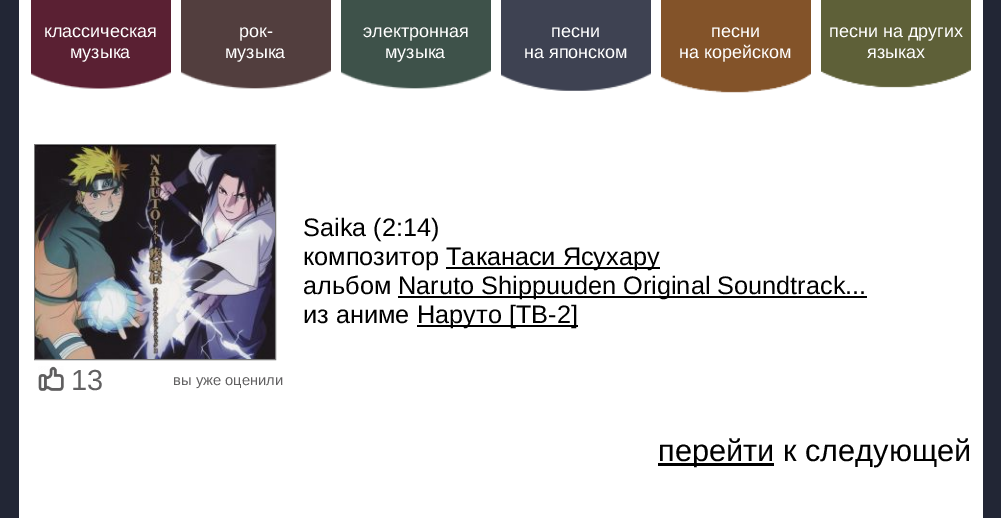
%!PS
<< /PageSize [1001 518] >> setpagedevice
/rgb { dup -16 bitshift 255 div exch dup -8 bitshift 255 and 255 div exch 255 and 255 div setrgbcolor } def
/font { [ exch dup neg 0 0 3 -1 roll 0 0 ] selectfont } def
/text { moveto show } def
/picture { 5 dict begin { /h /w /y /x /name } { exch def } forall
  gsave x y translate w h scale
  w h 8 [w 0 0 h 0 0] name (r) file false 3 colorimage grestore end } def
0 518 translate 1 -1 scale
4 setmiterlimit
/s1 { /LiberationSans-Regular 18 font 16#FFFFFF rgb } def
/s2 { /LiberationSans-Regular 25.3 font 16#000000 rgb } def
/s3 { /LiberationSans-Regular 29 font 16#616061 rgb } def
/s4 { /LiberationSans-Regular 14.75 font 16#616061 rgb } def
/s5 { /LiberationSans-Regular 30.75 font 16#000000 rgb } def
16#222635 rgb
0 0 1001 518 rectfill
16#FFFFFF rgb
19 0 964 518 rectfill
16#5A2033 rgb
31 0 140 63 rectfill
s1
(классическая) 44 37 text
(музыка) 70 58 text
(pic1.raw) 31 63 140 26 picture
16#523E3E rgb
181 0 150 63 rectfill
s1
(рок-) 239 37 text
(музыка) 225 58 text
(pic2.raw) 181 63 150 26 picture
16#3E524A rgb
341 0 150 63 rectfill
s1
(электронная) 363 37 text
(музыка) 385 58 text
(pic3.raw) 341 63 150 26 picture
16#3E4252 rgb
501 0 150 63 rectfill
s1
(песни) 551 37 text
(на японском) 524 58 text
(pic4.raw) 501 63 150 28 picture
16#835329 rgb
661 0 150 63 rectfill
s1
(песни) 711 37 text
(на корейском) 679 58 text
(pic5.raw) 661 63 150 30 picture
16#5E6038 rgb
821 0 150 63 rectfill
s1
(песни на других) 829 37 text
(языках) 867 58 text
(pic6.raw) 821 63 150 25 picture
s2
(Saika \(2:14\)) 303 236 text
(композитор) 303 265 text
446 267 214 2 rectfill
(Таканаси Ясухару) 446 265 text
(альбом) 303 294 text
398 296 469 2 rectfill
(Naruto Shippuuden Original Soundtrack...) 398 294 text
(из аниме) 303 323 text
417 325 161 2 rectfill
(Наруто [ТВ-2]) 417 323 text
16#7A7A7A rgb
34.5 144.5 241 215 rectstroke
(pic7.raw) 35 145 240 214 picture
(pic8.raw) 38 366 26 25 picture
s3
(13) 71 390 text
s4
(вы уже оценили) 173 385 text
16#000000 rgb
658 463 116 3 rectfill
s5
(перейти к следующей) 658 461 text
showpage
